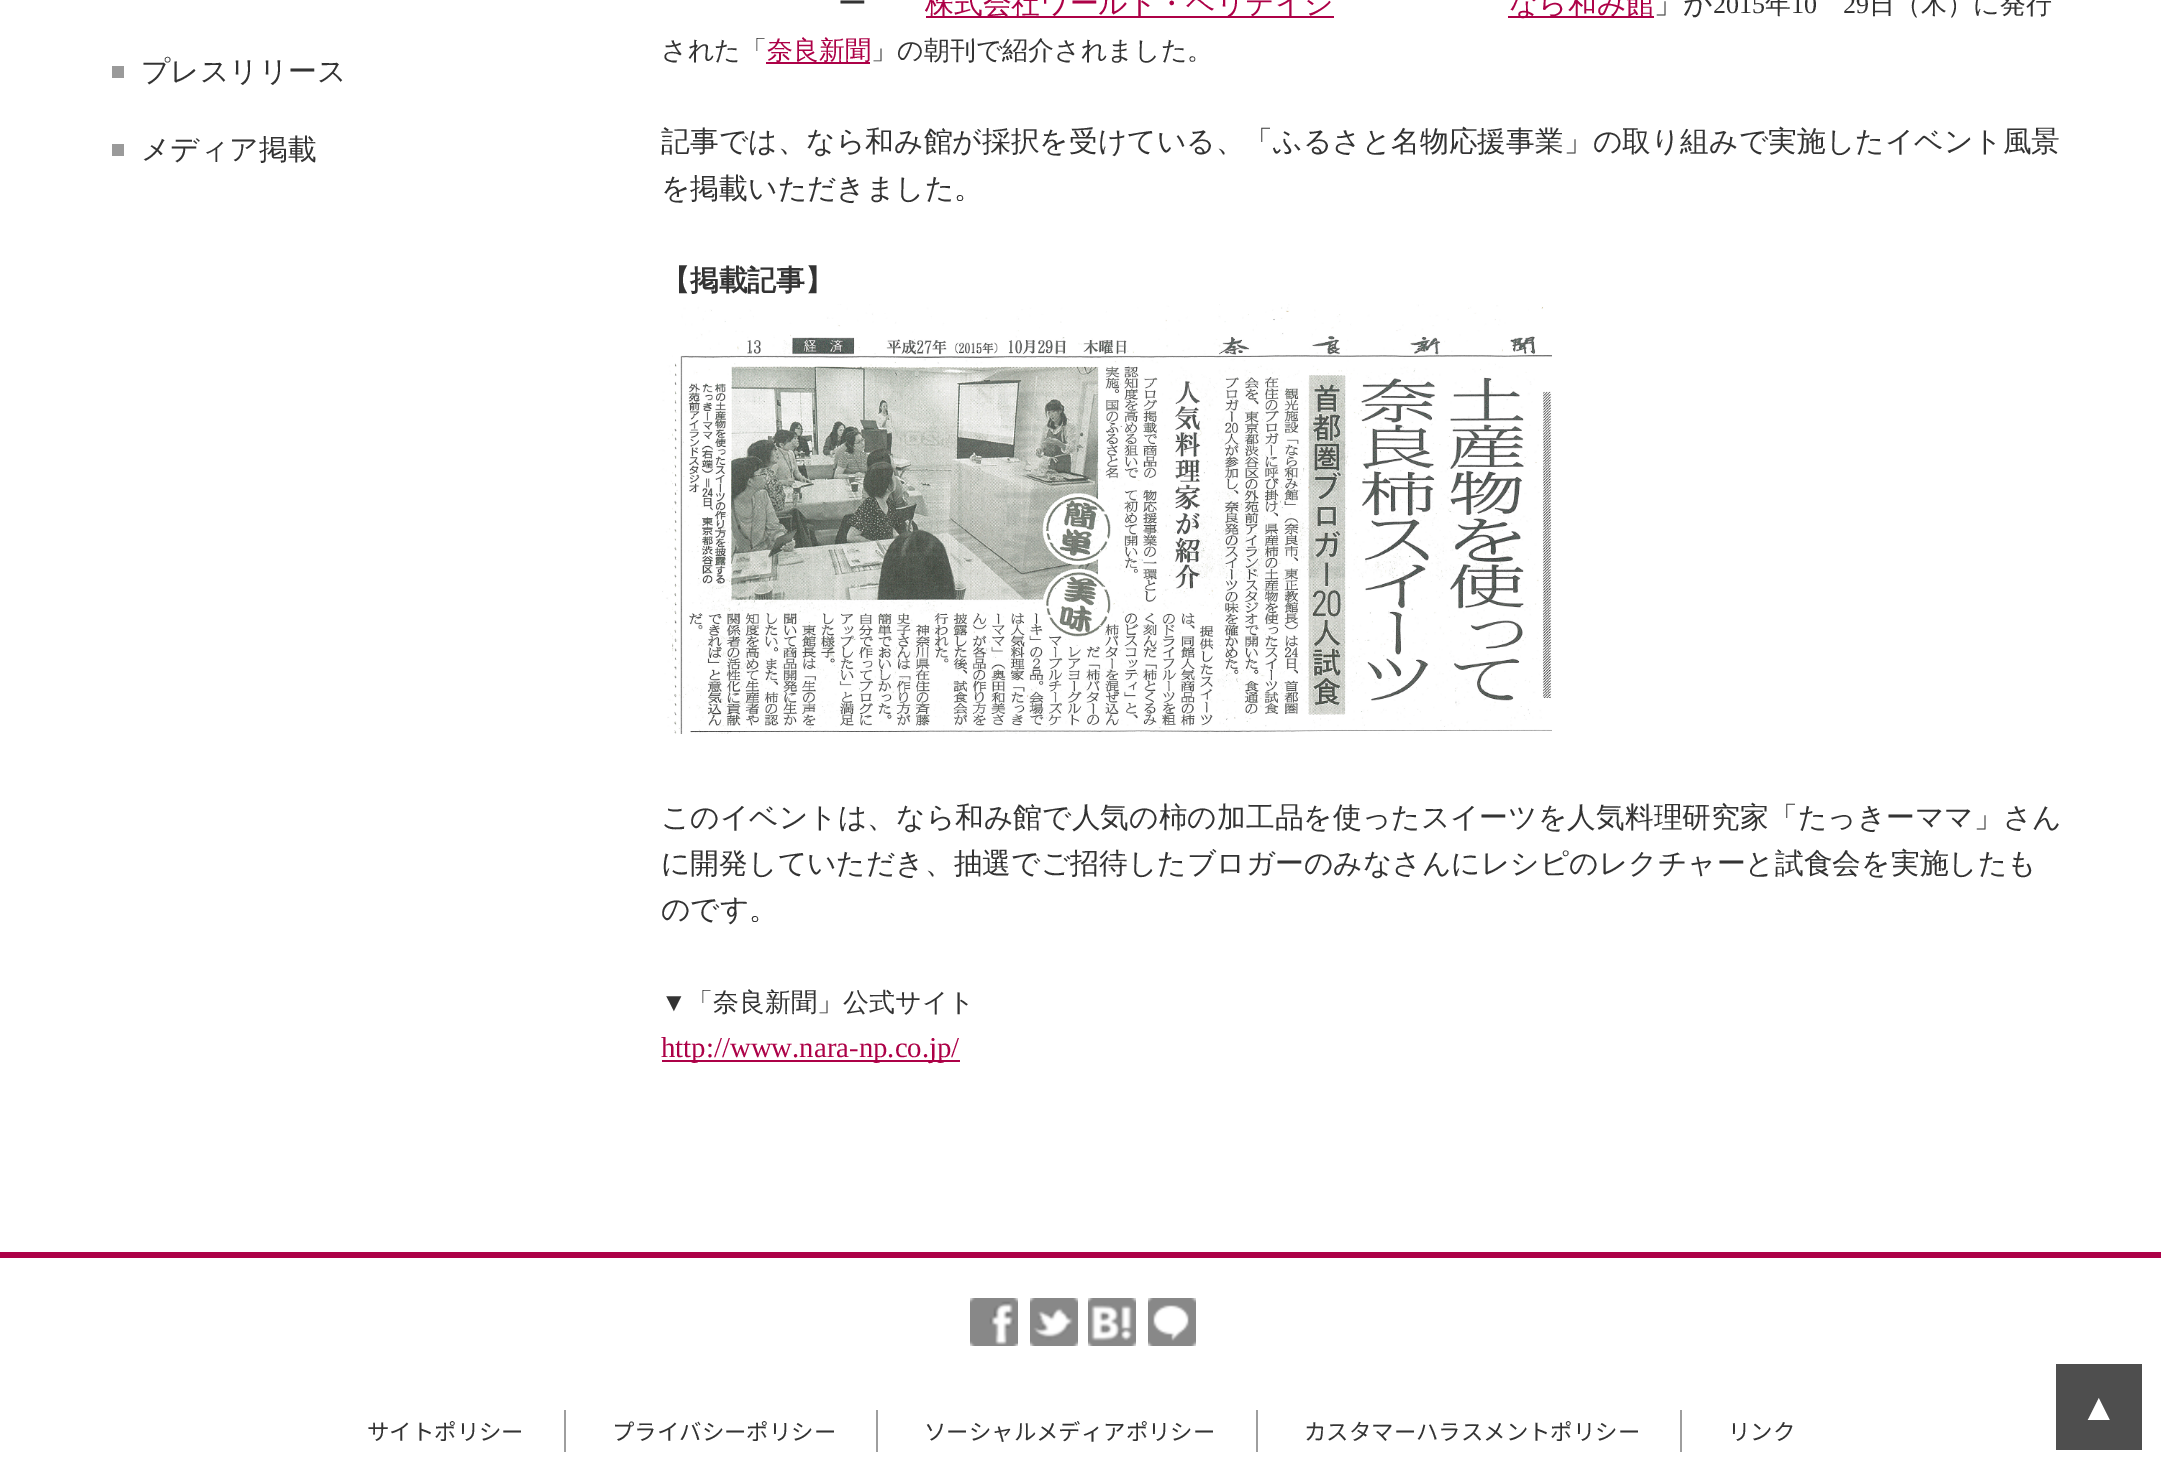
%!PS
<< /PageSize [2161 1469] >> setpagedevice
/rgb { dup -16 bitshift 255 div exch dup -8 bitshift 255 and 255 div exch 255 and 255 div setrgbcolor } def
/font { [ exch dup neg 0 0 3 -1 roll 0 0 ] selectfont } def
/text { moveto show } def
/picture { 5 dict begin { /h /w /y /x /name } { exch def } forall
  gsave x y translate w h scale
  w h 8 [w 0 0 h 0 0] name (r) file false 3 colorimage grestore end } def
0 1469 translate 1 -1 scale
4 setmiterlimit
/s1 { /WenQuanYiZenHei-Medium 28.8 font 16#333333 rgb } def
/s2 { /WenQuanYiZenHei-Medium 28.8 font 16#AD0147 rgb } def
/s3 { /LiberationSerif-Regular 26 font 16#333333 rgb } def
/s4 { /WenQuanYiZenHei-Medium 26 font 16#333333 rgb } def
/s5 { /WenQuanYiZenHei-Medium 26 font 16#AD0147 rgb } def
/s6 { /WenQuanYiZenHei-Bold 28.8 font 16#333333 rgb } def
/s7 { /LiberationSerif-Regular 28.8 font 16#AD0147 rgb } def
/s8 { /LiberationSerif-Regular 38 font 16#FFFFFF rgb } def
/s9 { /NotoSansJP-Regular 22.4 font 16#333333 rgb } def
16#FFFFFF rgb
0 0 2161 1469 rectfill
16#9A9A9A rgb
112 66 12 12 rectfill
s1
(プレスリリース) 141 81 text
16#9A9A9A rgb
112 144 12 12 rectfill
s1
(メディア掲載) 141 159 text
(ー) 838 13 text
16#AD0147 rgb
926 16 408 2 rectfill
(株式会社ワールド・ヘリテイジ) 925 13 text
1508 16 146 2 rectfill
(なら和み館) 1509 13 text
s1
(」が) 1654 13 text
s3
(2015) 1713 13 text
s4
(年) 1765 13 text
s3
(10) 1791 13 text
(29) 1843 13 text
s4
(日（木）に発行) 1869 13 text
(された「) 661 59 text
16#AD0147 rgb
766 62 104 2 rectfill
(奈良新聞) 767 59 text
s4
(」の朝刊で紹介されました。) 871 59 text
s1
(記事では、なら和み館が採択を受けている、「ふるさと名物応援事業」の取り組みで実施したイベント風景) 661 151 text
(を掲載いただきました。) 661 198 text
s6
(【掲載記事】) 661 290 text
(pic1.raw) 662 304 890 430 picture
s1
(このイベントは、なら和み館で人気の柿の加工品を使ったスイーツを人気料理研究家「たっきーママ」さん) 661 827 text
(に開発していただき、抽選でご招待したブロガーのみなさんにレシピのレクチャーと試食会を実施したも) 661 873 text
(のです。) 661 919 text
s3
(▼) 661 1011 text
s4
(「奈良新聞」公式サイト) 687 1011 text
16#AD0147 rgb
662 1060 298 2 rectfill
s7
(http://www.nara-np.co.jp/) 661 1057 text
16#4E4E4E rgb
2056 1364 86 86 rectfill
s8
(▲) 2080 1420 text
16#AD0147 rgb
0 1252 2161 6 rectfill
(pic2.raw) 970 1298 48 48 picture
(pic3.raw) 1030 1298 48 48 picture
(pic4.raw) 1088 1298 48 48 picture
(pic5.raw) 1148 1298 48 48 picture
16#9E9E9E rgb
564 1410 2 42 rectfill
s9
(サイトポリシー) 367 1440 text
16#9E9E9E rgb
876 1410 2 42 rectfill
s9
(プライバシーポリシー) 612 1440 text
16#9E9E9E rgb
1256 1410 2 42 rectfill
s9
(ソーシャルメディアポリシー) 924 1440 text
16#9E9E9E rgb
1680 1410 2 42 rectfill
s9
(カスタマーハラスメントポリシー) 1304 1440 text
(リンク) 1728 1440 text
showpage
